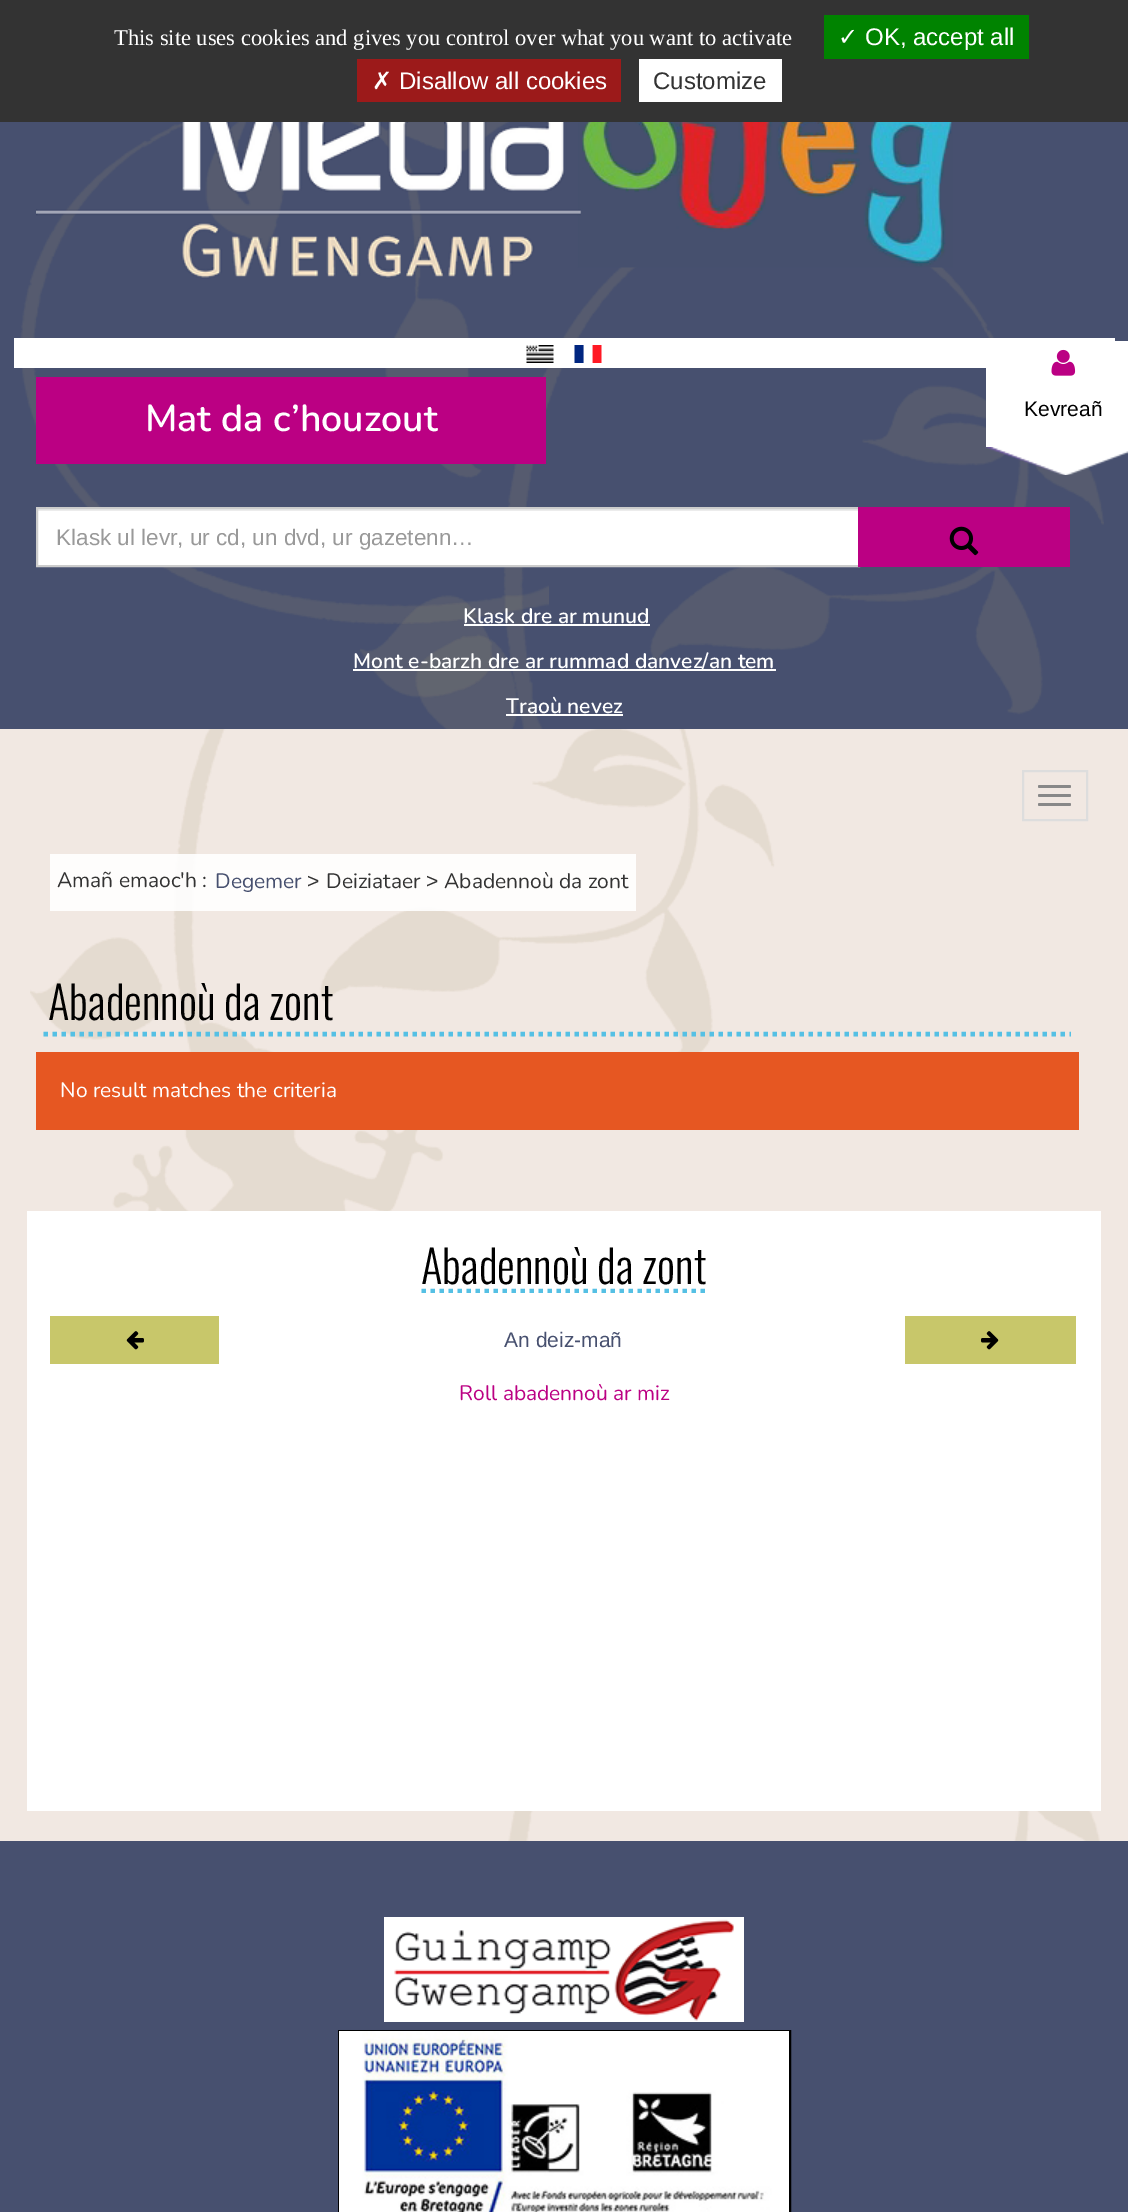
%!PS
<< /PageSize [1128 2212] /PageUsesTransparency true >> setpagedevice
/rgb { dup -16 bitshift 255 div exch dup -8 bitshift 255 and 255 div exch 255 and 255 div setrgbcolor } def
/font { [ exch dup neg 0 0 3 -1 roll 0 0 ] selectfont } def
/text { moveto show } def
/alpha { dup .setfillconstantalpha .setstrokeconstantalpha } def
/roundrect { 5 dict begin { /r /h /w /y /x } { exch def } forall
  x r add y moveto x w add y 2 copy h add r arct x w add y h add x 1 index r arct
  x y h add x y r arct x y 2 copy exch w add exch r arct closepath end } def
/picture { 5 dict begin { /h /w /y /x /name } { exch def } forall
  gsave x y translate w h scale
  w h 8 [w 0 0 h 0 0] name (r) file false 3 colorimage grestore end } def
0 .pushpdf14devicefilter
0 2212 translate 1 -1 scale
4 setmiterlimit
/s1 { /LiberationSerif-Regular 22.5 font 16#FFFFFF rgb } def
/s2 { /DejaVuSans-Regular 24 font 16#FFFFFF rgb } def
/s3 { /LiberationSans-Regular 24 font 16#FFFFFF rgb } def
/s4 { /LiberationSans-Regular 24 font 16#333333 rgb } def
/s5 { /Nunito-SemiBold 37.5 font 16#FFFFFF rgb } def
/s6 { /LiberationSans-Regular 22.5 font 16#999999 rgb } def
/s7 { /Nunito-SemiBold 21 font 16#FFFFFF rgb } def
/s8 { /LiberationSans-Regular 21 font 16#000000 rgb } def
/s9 { /Nunito-Regular 21 font 16#333333 rgb } def
/s10 { /Nunito-Regular 21 font 16#47506F rgb } def
/s11 { /LiberationSans-Regular 21 font 16#333333 rgb } def
/s12 { /Oswald-Light 45 font 16#000000 rgb } def
/s13 { /Nunito-Regular 21 font 16#FFFFFF rgb } def
/s14 { /LiberationSans-Regular 21 font 16#47506F rgb } def
/s15 { /Nunito-Regular 21 font 16#BB0083 rgb } def
16#F1E8E2 rgb
0 0 1128 2212 rectfill
(pic1.raw) 30 729 1070 1112 picture
16#333333 rgb
0 0 1128 122 rectfill
s1
(This site uses cookies and gives you control over what you want to activate) 114 45 text
16#008300 rgb
824 15 205 44 rectfill
s2
(✓) 838 45 text
s3
(OK, accept all) 865 45 text
16#9C1A1A rgb
357 59 264 43 rectfill
s2
(✗) 372 89 text
s3
(Disallow all cookies) 399 89 text
639 59 143 43 rectfill
s4
(Customize) 653 89 text
16#47506F rgb
0 122 1128 607 rectfill
(pic2.raw) 20 122 1084 607 picture
16#BB0083 rgb
36 377 510 87 rectfill
s5
(Mat da c’houzout) 145 431 text
38 511 820 54 rectfill
16#ECECEC rgb
38 509 820 2 rectfill
16#CCCCCC rgb
2 setlinewidth
37 508 822 58 rectstroke
s6
(Klask ul levr, ur cd, un dvd, ur gazetenn…) 56 545 text
16#BB0083 rgb
858 507 212 60 rectfill
(pic3.raw) 949 526 30 30 picture
s7
(Klask dre ar munud) 463 623 text
464 624 186 2 rectfill
353 669 423 2 rectfill
(Mont e-barzh dre ar rummad danvez/an tem) 353 668 text
(Traoù nevez) 506 713 text
506 714 117 2 rectfill
(pic4.raw) 36 122 917 157 picture
14 338 1101 30 rectfill
(pic5.raw) 526 345 28 18 picture
(pic6.raw) 574 345 28 18 picture
986 341 142 106 rectfill
(pic7.raw) 1051 349 25 27 picture
s8
(Kevreañ) 1024 416 text
(pic8.raw) 985 447 143 28 picture
16#DDDDDD rgb
1023 771 64 49 rectstroke
16#888888 rgb
1038 785 33 3 1.5 roundrect fill
1038 794 33 3 1.5 roundrect fill
1038 803 33 3 1.5 roundrect fill
0.9 alpha
16#FFFFFF rgb
50 854 586 57 rectfill
1 alpha
s9
(Amañ emaoc'h :) 57 887 text
s10
(Degemer) 215 888 text
s11
(>) 307 888 text
s9
(Deiziataer) 326 888 text
s11
(>) 426 888 text
s9
(Abadennoù da zont) 444 888 text
16#55C0E4 rgb
4.5 setlinewidth
[4.5 4.5] 0 setdash
43.5 1034 moveto 1071 1034 lineto stroke
s12
(Abadennoù da zont) 48 1020 text
16#E65722 rgb
36 1052 1043 78 rectfill
s13
(No result matches the criteria) 60 1097 text
27 1211 1074 600 rectfill
gsave
35 1239 1059 54 rectclip
16#55C0E4 rgb
421.5 1291 moveto 706.5 1291 lineto stroke
grestore
s12
(Abadennoù da zont) 421 1284 text
16#C8C76A rgb
50 1316 169 48 rectfill
(pic9.raw) 126 1331 18 19 picture
s14
(An deiz-mañ) 504 1347 text
16#C8C76A rgb
905 1316 171 48 rectfill
(pic10.raw) 981 1331 18 19 picture
s15
(Roll abadennoù ar miz) 459 1400 text
16#47506F rgb
0 1841 1128 371 rectfill
(pic11.raw) 384 1917 360 105 picture
16#000000 rgb
2 setlinewidth
[] 0 setdash
339 2031 451 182 rectstroke
(pic12.raw) 339 2031 450 181 picture
.poppdf14devicefilter showpage
